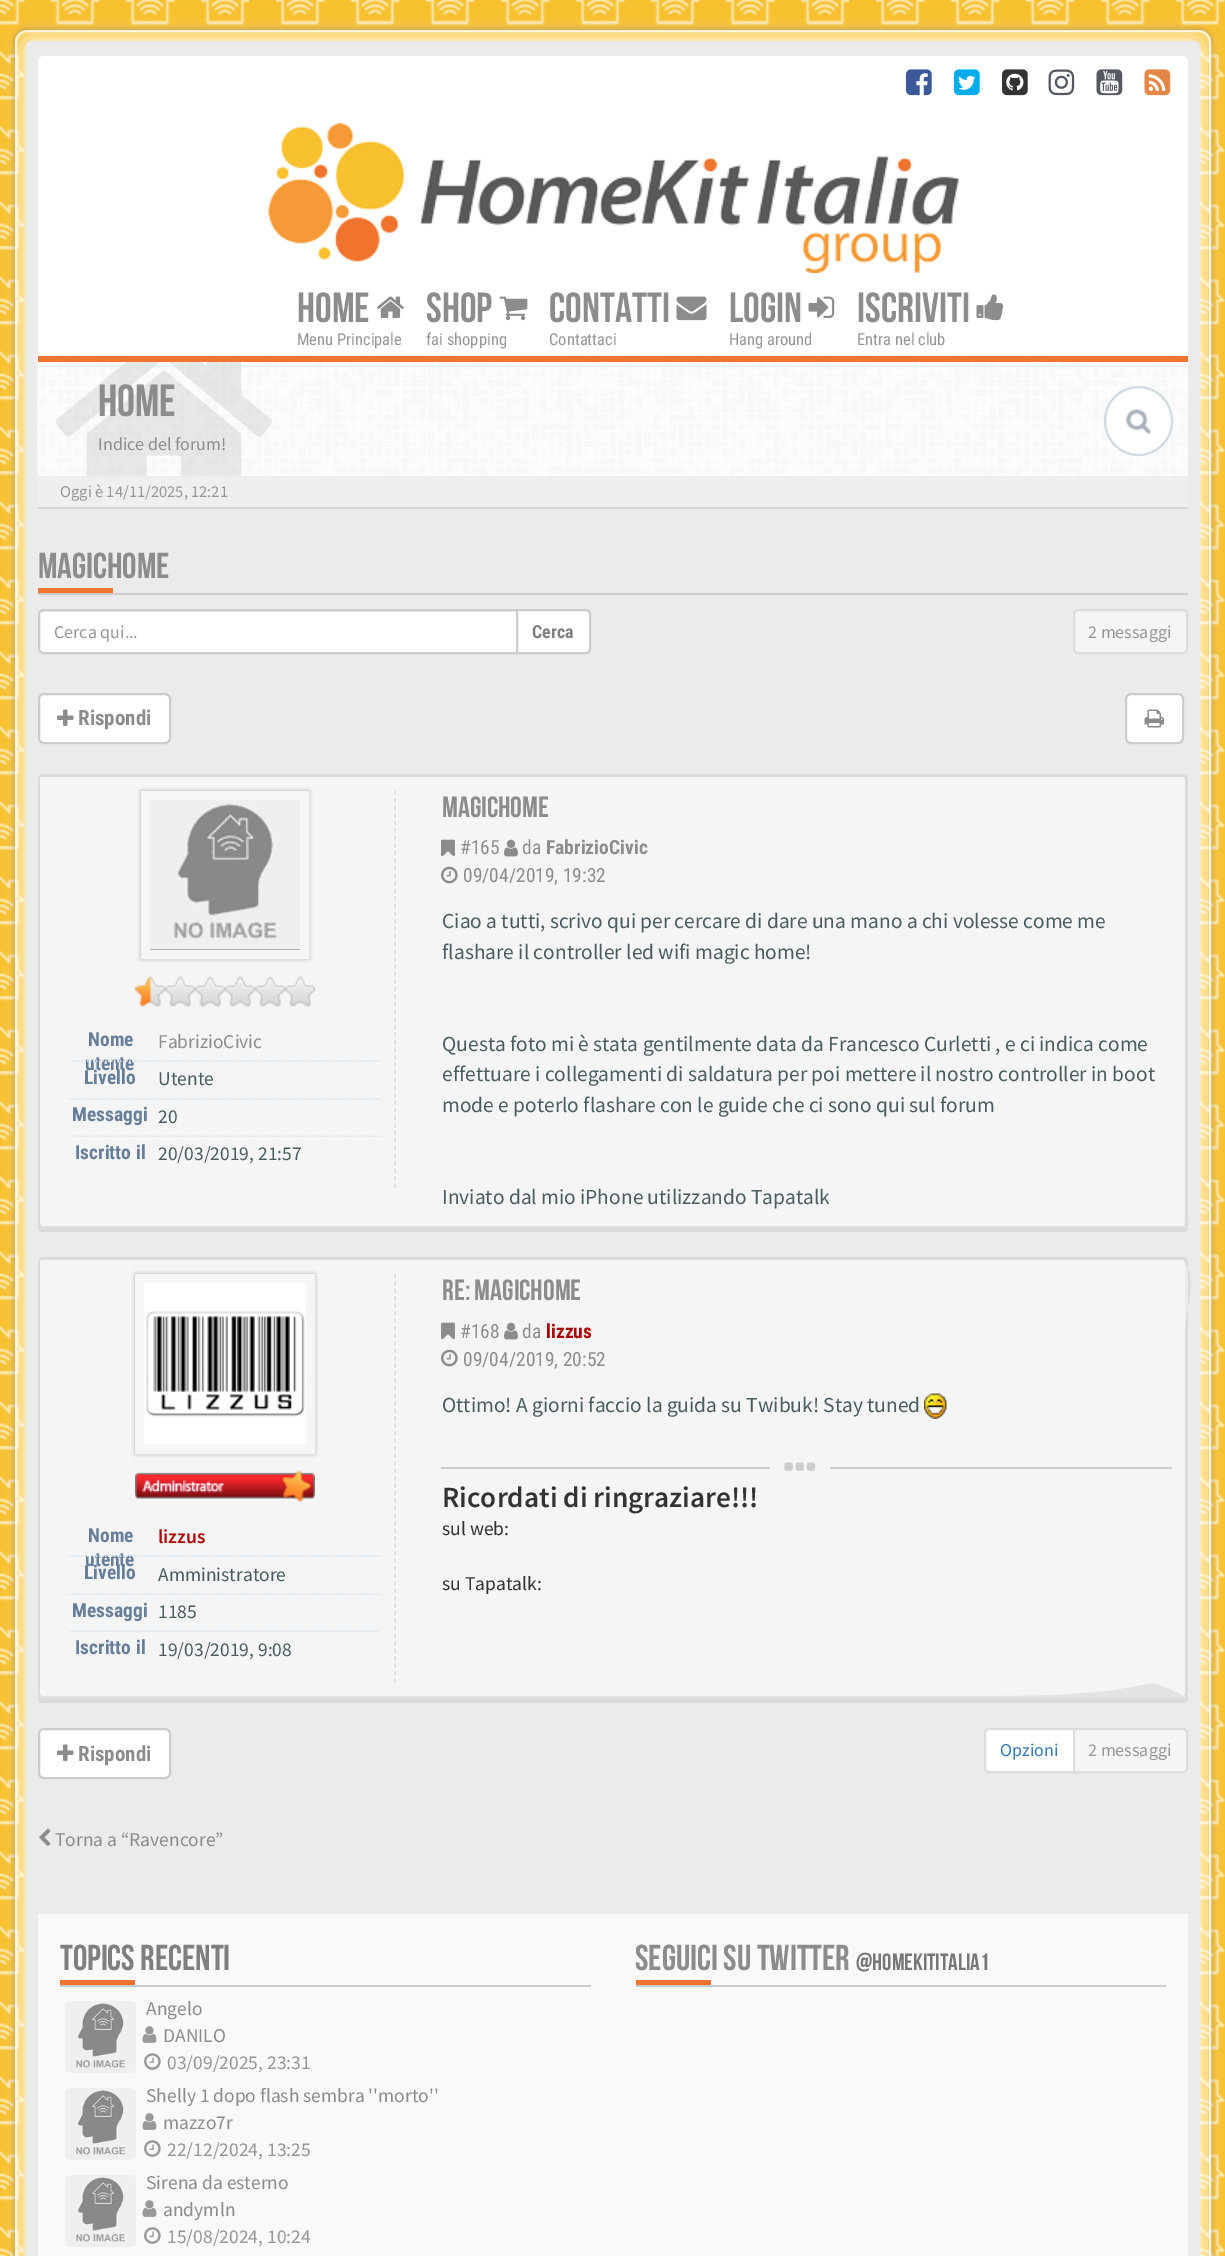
%!PS
<< /PageSize [1225 2256] /PageUsesTransparency true >> setpagedevice
/rgb { dup -16 bitshift 255 div exch dup -8 bitshift 255 and 255 div exch 255 and 255 div setrgbcolor } def
/font { [ exch dup neg 0 0 3 -1 roll 0 0 ] selectfont } def
/text { moveto show } def
/alpha { dup .setfillconstantalpha .setstrokeconstantalpha } def
/roundrect { 5 dict begin { /r /h /w /y /x } { exch def } forall
  x r add y moveto x w add y 2 copy h add r arct x w add y h add x 1 index r arct
  x y h add x y r arct x y 2 copy exch w add exch r arct closepath end } def
/shadow { 12 dict begin { /a /b /q /h /w /y /x } { exch def } forall gsave /was 0 def
  9 -2 -9 { dup b mul 4 div /e exch def 1 sub .425 mul 2.718 exch exp 1 add a .99 .min exch div /now exch def
    1 1 now sub 1 was sub div sub alpha /was now def
    w h .min e 2 mul add 0 gt { x e sub y e sub w e 2 mul add h e 2 mul add
      q e add b .6 mul add w h .min 2 div e add .min 0 .max roundrect fill } if } for grestore end } def
/picture { 5 dict begin { /h /w /y /x /name } { exch def } forall
  gsave x y translate w h scale
  w h 8 [w 0 0 h 0 0] name (r) file false 3 colorimage grestore end } def
0 .pushpdf14devicefilter
0 2256 translate 1 -1 scale
4 setmiterlimit
/s1 { /BebasNeue-Regular 42 font 16#8C8C8C rgb } def
/s2 { /RobotoCondensed-Regular 16.5 font 16#979595 rgb } def
/s3 { /BebasNeue-Regular 45 font 16#8C8C8C rgb } def
/s4 { /SourceSansPro-Regular 18 font 16#8C8C8C rgb } def
/s5 { /SourceSansPro-Regular 16.5 font 16#979595 rgb } def
/s6 { /BebasNeue-Regular 36 font 16#8C8C8C rgb } def
/s7 { /SourceSansPro-Regular 18 font 16#979595 rgb } def
/s8 { /RobotoCondensed-Bold 18 font 16#7F7F7F rgb } def
/s9 { /RobotoCondensed-Bold 21 font 16#8C8C8C rgb } def
/s10 { /RobotoCondensed-Bold 19.5 font 16#667E99 rgb } def
/s11 { /SourceSansPro-Regular 19.5 font 16#8C8C8C rgb } def
/s12 { /SourceSansPro-Regular 19.5 font 16#495D60 rgb } def
/s13 { /BebasNeue-Regular 29.25 font 16#8C8C8C rgb } def
/s14 { /RobotoCondensed-Regular 19.5 font 16#8C8C8C rgb } def
/s15 { /RobotoCondensed-Bold 19.5 font 16#8C8C8C rgb } def
/s16 { /SourceSansPro-Regular 21.45 font 16#495D60 rgb } def
/s17 { /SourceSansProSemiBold-SemiBold 19.5 font 16#AA0000 rgb } def
/s18 { /RobotoCondensed-Bold 19.5 font 16#AA0000 rgb } def
/s19 { /SourceSansProSemiBold-SemiBold 29.25 font 16#333333 rgb } def
/s20 { /SourceSansPro-Regular 19.5 font 16#333333 rgb } def
/s21 { /SourceSansPro-Regular 18 font 16#337AB7 rgb } def
/s22 { /BebasNeue-Regular 36 font 16#7F7F7F rgb } def
/s23 { /SourceSansPro-Regular 19.5 font 16#979595 rgb } def
/s24 { /BebasNeue-Regular 23.5 font 16#777777 rgb } def
16#F7C02F rgb
0 0 1225 2256 rectfill
(pic1.raw) 0 0 1225 2256 picture
gsave
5 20 moveto 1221 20 lineto 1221 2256 lineto 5 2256 lineto closepath 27 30 moveto 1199 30 lineto 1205.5 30 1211 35.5 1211 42 curveto 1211 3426 lineto 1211 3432.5 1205.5 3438 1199 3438 curveto 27 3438 lineto 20.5 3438 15 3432.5 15 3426 curveto 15 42 lineto 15 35.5 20.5 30 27 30 curveto closepath eoclip newpath
16#323232 rgb
15 30 1196 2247 12 3 0.5 shadow
grestore
0.2 alpha
16#FFFFFF rgb
15 30 1196 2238 12 roundrect fill
0.75 alpha
2 setlinewidth
16 31 1194 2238 11 roundrect stroke
1 alpha
26 41 1174 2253 6 10.5 1 shadow
16#EBEBEB rgb
26 41 1174 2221 6 roundrect fill
16#FFFFFF rgb
44 56 moveto 1182 56 lineto 1185.5 56 1188 58.5 1188 62 curveto 1188 356 lineto 38 356 lineto 38 62 lineto 38 58.5 40.5 56 44 56 curveto closepath fill
(pic2.raw) 906 69 26 27 picture
(pic3.raw) 954 69 26 27 picture
(pic4.raw) 1002 69 26 27 picture
(pic5.raw) 1048 69 27 27 picture
(pic6.raw) 1096 69 27 27 picture
(pic7.raw) 1144 69 27 27 picture
(pic8.raw) 268 123 691 150 picture
s1
(HOME) 297 322 text
(pic9.raw) 377 296 27 22 picture
s2
(Menu Principale) 297 345 text
s1
(SHOP) 426 322 text
(pic10.raw) 499 296 29 25 picture
s2
(fai shopping) 426 345 text
s1
(CONTATTI) 549 322 text
(pic11.raw) 676 296 31 25 picture
s2
(Contattaci) 549 345 text
s1
(LOGIN) 729 322 text
(pic12.raw) 808 296 27 22 picture
s2
(Hang around) 729 345 text
s1
(ISCRIVITI) 857 322 text
(pic13.raw) 976 294 28 27 picture
s2
(Entra nel club) 857 345 text
16#FFFFFF rgb
38 475 1150 1 rectfill
(pic14.raw) 37 355 1151 121 picture
16#F0742E rgb
38 356 1150 6 rectfill
(pic15.raw) 56 362 216 114 picture
s3
(HOME) 98 416 text
s4
(Indice del forum!) 98 450 text
16#FFFFFF rgb
1104 386 69 70 34.5 roundrect fill
(pic16.raw) 1126 409 25 25 picture
16#CFDAE1 rgb
1105 387 67 68 33.5 roundrect stroke
16#D4D4D4 rgb
38 507 1150 2 rectfill
16#EFEFEF rgb
38 477 1150 30 rectfill
s5
(Oggi è 14/11/2025, 12:21) 60 497 text
16#CCCCCC rgb
38 593 1150 2 rectfill
s6
(MAGICHOME) 38 578 text
16#F0742E rgb
38 588 75 5 rectfill
16#FFFFFF rgb
43 609 moveto 518 609 lineto 518 654 lineto 43 654 lineto 40 654 38 652 38 649 curveto 38 614 lineto 38 611 40 609 43 609 curveto closepath fill
16#ECECEC rgb
42 612 moveto 516 612 lineto 516 611 lineto 42 611 lineto 40 611 39 613 39 615 curveto 39 613 40 612 42 612 curveto closepath fill
16#CCCCCC rgb
43 610 moveto 517 610 lineto 517 653 lineto 43 653 lineto 41 653 39 651 39 649 curveto 39 614 lineto 39 612 41 610 43 610 curveto closepath stroke
s7
(Cerca qui...) 54 638 text
16#FFFFFF rgb
517 610 moveto 586 610 lineto 588 610 590 612 590 614 curveto 590 649 lineto 590 651 588 653 586 653 curveto 517 653 lineto closepath gsave fill grestore
16#CCCCCC rgb
stroke
s8
(Cerca) 532 638 text
16#F5F5F5 rgb
1074 610 113 43 4 roundrect gsave fill grestore
16#DDDDDD rgb
stroke
s7
(2 messaggi) 1088 638 text
16#FFFFFF rgb
39 694 131 49 5 roundrect gsave fill grestore
16#CCCCCC rgb
stroke
(pic17.raw) 57 709 17 17 picture
s9
(Rispondi) 78 725 text
16#FFFFFF rgb
1126 694 57 49 5 roundrect gsave fill grestore
16#CCCCCC rgb
stroke
(pic18.raw) 1144 709 20 19 picture
16#DBDBDB rgb
38 1225 moveto 38 1227 lineto 38 1230 40 1232 43 1232 curveto 1183 1232 lineto 1186 1232 1188 1230 1188 1227 curveto 1188 1222 lineto 1188 1225 1186 1227 1184 1227 curveto 42 1227 lineto 40 1227 39 1226 38 1225 curveto closepath fill
16#F5F5F5 rgb
42 777 moveto 1184 777 lineto 1184 777 1185 778 1185 778 curveto 1185 1222 lineto 1185 1224 1184 1226 1184 1226 curveto 42 1226 lineto 41 1226 40 1224 40 1222 curveto 40 778 lineto 40 778 41 777 42 777 curveto closepath fill
16#DBDBDB rgb
42 774 moveto 41 774 40 775 39 776 curveto 41 777 lineto 42 777 lineto 1184 777 lineto 1184 778 lineto 1187 775 lineto 1184 774 lineto closepath fill
1188 1222 moveto 1188 778 lineto 1188 777 1188 776 1187 775 curveto 1184 778 lineto 1185 778 lineto 1185 1222 lineto 1184 1225 lineto 1186 1226 lineto 1187 1225 1188 1224 1188 1222 curveto closepath fill
16#E3E3E3 rgb
42 1227 moveto 1184 1227 lineto 1186 1226 lineto 1184 1225 lineto 1184 1226 lineto 42 1226 lineto 41 1225 lineto 40 1226 lineto closepath fill
16#DBDBDB rgb
39 776 moveto 38 778 lineto 38 1222 lineto 38 1223 38 1225 40 1226 curveto 41 1225 lineto 40 1222 lineto 40 778 lineto 41 777 lineto closepath fill
16#DDDDDD rgb
1.5 setlinewidth
[4.5 3.06] 0 setdash
395 790.5 moveto 395 1188 lineto stroke
16#000000 rgb
141 791 168 168 0 2 0.3 shadow
16#F6F6F6 rgb
9 setlinewidth
[] 0 setdash
145.5 795.5 159 159 rectstroke
(pic19.raw) 150 800 150 149 picture
(pic20.raw) 135 976 180 31 picture
s10
(Nome) 88 1046 text
(utente) 85 1070 text
s11
(FabrizioCivic) 158 1048 text
16#D5E4F1 rgb
1.5 setlinewidth
[1.5 1.5] 0 setdash
69 1061 moveto 379.5 1061 lineto stroke
s10
(Livello) 84 1084 text
s12
(Utente) 158 1085 text
16#D5E4F1 rgb
69 1099 moveto 379.5 1099 lineto stroke
s10
(Messaggi) 72 1121 text
s12
(20) 158 1123 text
16#D5E4F1 rgb
69 1136 moveto 379.5 1136 lineto stroke
s10
(Iscritto il) 75 1159 text
s12
(20/03/2019, 21:57) 158 1160 text
s13
(Magichome) 442 817 text
(pic21.raw) 441 839 14 18 picture
s14
(#165) 460 854 text
(pic22.raw) 504 839 14 18 picture
(da) 522 854 text
s15
(FabrizioCivic) 546 854 text
(pic23.raw) 441 866 17 18 picture
s14
(09/04/2019, 19:32) 463 882 text
s16
(Ciao a tutti, scrivo qui per cercare di dare una mano a chi volesse come me) 442 928 text
(flashare il controller led wifi magic home!) 442 959 text
(Questa foto mi è stata gentilmente data da Francesco Curletti , e ci indica come) 442 1051 text
(effettuare i collegamenti di saldatura per poi mettere il nostro controller in boot) 442 1081 text
(mode e poterlo flashare con le guide che ci sono qui sul forum) 442 1112 text
(Inviato dal mio iPhone utilizzando Tapatalk) 442 1204 text
16#DBDBDB rgb
38 1696 moveto 38 1698 lineto 38 1701 40 1703 43 1703 curveto 1183 1703 lineto 1186 1703 1188 1701 1188 1698 curveto 1188 1694 lineto 1188 1696 1186 1698 1184 1698 curveto 42 1698 lineto 40 1698 39 1697 38 1696 curveto closepath fill
16#F5F5F5 rgb
42 1260 moveto 1184 1260 lineto 1184 1260 1185 1261 1185 1262 curveto 1185 1694 lineto 1185 1695 1184 1696 1184 1696 curveto 42 1696 lineto 41 1696 40 1695 40 1694 curveto 40 1262 lineto 40 1261 41 1260 42 1260 curveto closepath fill
16#DBDBDB rgb
42 1257 moveto 41 1257 40 1258 39 1259 curveto 41 1260 lineto 42 1260 lineto 1184 1260 lineto 1184 1261 lineto 1187 1258 lineto 1184 1257 lineto closepath fill
1188 1694 moveto 1188 1262 lineto 1188 1260 1187 1259 1187 1258 curveto 1184 1261 lineto 1198 1281 1185 1309 1185 1334 curveto 1185 1694 lineto 1184 1696 lineto 1186 1697 lineto 1187 1696 1188 1695 1188 1694 curveto closepath fill
16#E3E3E3 rgb
42 1698 moveto 1184 1698 lineto 1186 1697 lineto 1127 1668 1185 1696 994 1696 curveto 42 1696 lineto 40 1697 lineto closepath fill
16#DBDBDB rgb
39 1259 moveto 38 1261 lineto 38 1694 lineto 38 1695 39 1696 40 1697 curveto 42 1696 lineto 41 1696 40 1695 40 1694 curveto 40 1262 lineto 41 1260 lineto closepath fill
16#DDDDDD rgb
[4.5 3] 0 setdash
395 1273.5 moveto 395 1683 lineto stroke
16#000000 rgb
135 1274 180 180 0 2 0.3 shadow
16#F6F6F6 rgb
9 setlinewidth
[] 0 setdash
139.5 1278.5 171 171 rectstroke
(pic24.raw) 144 1282 162 163 picture
(pic25.raw) 135 1470 180 33 picture
s10
(Nome) 88 1542 text
(utente) 85 1566 text
s17
(lizzus) 158 1543 text
16#D5E4F1 rgb
1.5 setlinewidth
[1.5 1.5] 0 setdash
69 1556 moveto 379.5 1556 lineto stroke
s10
(Livello) 84 1579 text
s12
(Amministratore) 158 1581 text
16#D5E4F1 rgb
69 1594 moveto 379.5 1594 lineto stroke
s10
(Messaggi) 72 1617 text
s12
(1185) 158 1618 text
16#D5E4F1 rgb
69 1631 moveto 379.5 1631 lineto stroke
s10
(Iscritto il) 75 1654 text
s12
(19/03/2019, 9:08) 158 1656 text
s13
(Re: Magichome) 442 1300 text
(pic21.raw) 441 1322 14 18 picture
s14
(#168) 460 1338 text
(pic22.raw) 504 1322 14 18 picture
(da) 522 1338 text
s18
(lizzus) 546 1338 text
(pic23.raw) 441 1349 17 18 picture
s14
(09/04/2019, 20:52) 463 1366 text
s16
(Ottimo! A giorni faccio la guida su Twibuk! Stay tuned) 442 1412 text
(pic26.raw) 924 1393 23 26 picture
16#CDCDCD rgb
441 1467 731 2 rectfill
16#F5F5F5 rgb
770 1467 60 2 rectfill
(pic27.raw) 784 1462 32 9 picture
s19
(Ricordati di ringraziare!!!) 442 1507 text
s20
(sul web:) 442 1535 text
(su Tapatalk:) 442 1590 text
16#FFFFFF rgb
39 1729 131 49 5 roundrect gsave fill grestore
16#CCCCCC rgb
2 setlinewidth
[] 0 setdash
stroke
(pic17.raw) 57 1744 17 17 picture
s9
(Rispondi) 78 1761 text
16#FFFFFF rgb
989 1729 moveto 1075 1729 lineto 1075 1772 lineto 989 1772 lineto 987 1772 985 1770 985 1768 curveto 985 1733 lineto 985 1731 987 1729 989 1729 curveto closepath gsave fill grestore
16#DDDDDD rgb
stroke
s21
(Opzioni) 1000 1756 text
16#F5F5F5 rgb
1074 1729 moveto 1183 1729 lineto 1185 1729 1187 1731 1187 1733 curveto 1187 1768 lineto 1187 1770 1185 1772 1183 1772 curveto 1074 1772 lineto closepath gsave fill grestore
16#DDDDDD rgb
stroke
s7
(2 messaggi) 1088 1756 text
(pic28.raw) 39 1828 12 18 picture
s11
(Torna a “Ravencore”) 55 1846 text
16#F9F9F9 rgb
38 1914 1150 342 rectfill
16#CCCCCC rgb
60 1985 531 2 rectfill
s22
(TOPICS RECENTI) 60 1970 text
16#F0742E rgb
60 1980 75 5 rectfill
s11
(Angelo) 146 2015 text
(pic29.raw) 65 2001 71 72 picture
(pic30.raw) 142 2026 15 17 picture
(DANILO) 163 2042 text
(pic31.raw) 144 2053 17 17 picture
s23
(03/09/2025, 23:31) 167 2069 text
s11
(Shelly 1 dopo flash sembra ''morto'') 146 2102 text
(pic29.raw) 65 2088 71 72 picture
(pic30.raw) 142 2113 15 17 picture
(mazzo7r) 163 2129 text
(pic31.raw) 144 2140 17 17 picture
s23
(22/12/2024, 13:25) 167 2156 text
s11
(Sirena da esterno) 146 2189 text
(pic29.raw) 65 2175 71 72 picture
(pic30.raw) 142 2200 15 17 picture
(andymln) 163 2216 text
(pic31.raw) 144 2227 17 17 picture
s23
(15/08/2024, 10:24) 167 2243 text
16#CCCCCC rgb
636 1985 530 2 rectfill
s6
(SEGUICI SU TWITTER) 635 1970 text
s24
(@HOMEKITITALIA1) 856 1970 text
16#F0742E rgb
636 1980 75 5 rectfill
.poppdf14devicefilter showpage
